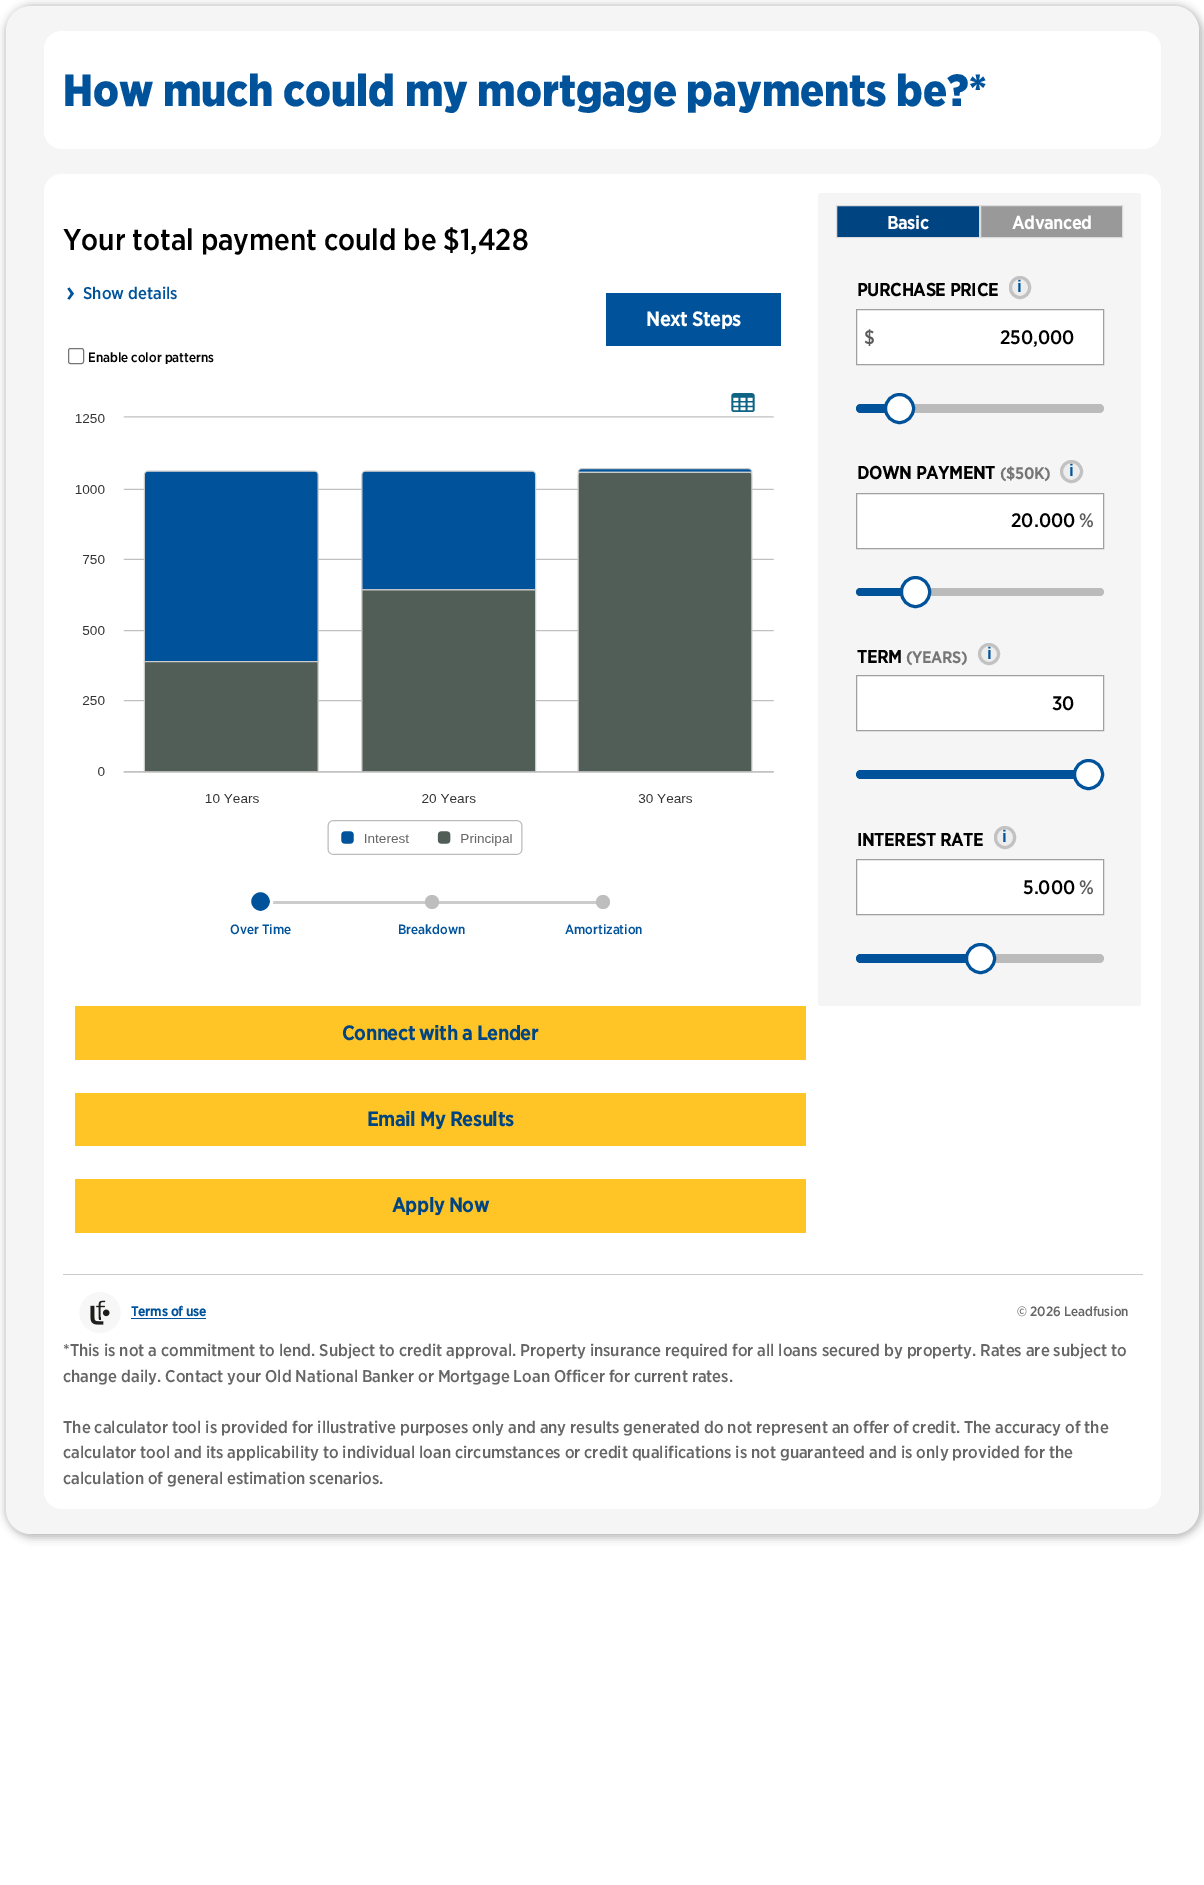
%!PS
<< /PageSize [1204 1885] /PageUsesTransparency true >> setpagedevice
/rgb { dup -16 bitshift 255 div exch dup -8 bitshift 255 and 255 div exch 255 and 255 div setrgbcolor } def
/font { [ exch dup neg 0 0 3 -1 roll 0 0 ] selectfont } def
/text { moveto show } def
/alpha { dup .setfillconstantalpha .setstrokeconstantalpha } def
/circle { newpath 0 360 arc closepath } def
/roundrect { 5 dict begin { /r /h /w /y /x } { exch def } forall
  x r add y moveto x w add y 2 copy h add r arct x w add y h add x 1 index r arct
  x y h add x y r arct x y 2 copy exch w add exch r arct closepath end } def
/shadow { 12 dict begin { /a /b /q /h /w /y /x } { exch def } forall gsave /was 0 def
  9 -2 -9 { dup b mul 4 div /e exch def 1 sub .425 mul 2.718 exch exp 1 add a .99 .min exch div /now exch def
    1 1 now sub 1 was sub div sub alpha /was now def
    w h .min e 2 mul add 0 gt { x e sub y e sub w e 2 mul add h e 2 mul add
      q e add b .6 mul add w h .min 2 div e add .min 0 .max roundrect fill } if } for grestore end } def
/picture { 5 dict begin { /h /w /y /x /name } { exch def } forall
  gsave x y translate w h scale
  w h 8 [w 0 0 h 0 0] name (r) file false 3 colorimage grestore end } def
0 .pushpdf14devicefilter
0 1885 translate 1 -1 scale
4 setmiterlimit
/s1 { /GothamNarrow-Black 45 font 16#00539B rgb } def
/s2 { /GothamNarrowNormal-Medium 30 font 16#000000 rgb } def
/s3 { /GothamNarrowNormal-Medium 28 font 16#00539B rgb } def
/s4 { /GothamNarrowNormal-Medium 17 font 16#00539B rgb } def
/s5 { /GothamNarrowNormal-Bold 20 font 16#FFFFFF rgb } def
/s6 { /GothamNarrowNormal-Medium 13.5 font 16#000000 rgb } def
/s7 { /GothamNarrowNormal-Medium 13.5 font 16#00539B rgb } def
/s8 { /GothamNarrowNormal-Bold 20 font 16#004582 rgb } def
/s9 { /GothamNarrowNormal-Bold 18 font 16#FFFFFF rgb } def
/s10 { /GothamNarrowNormal-Bold 18 font 16#000000 rgb } def
/s11 { /LiberationSans-Bold 17 font 16#00539B rgb } def
/s12 { /GothamNarrowNormal-Medium 19.5 font 16#5C5B5B rgb } def
/s13 { /GothamNarrowNormal-Medium 19.5 font 16#000000 rgb } def
/s14 { /GothamNarrowNormal-Bold 16 font 16#767676 rgb } def
/s15 { /GothamNarrowNormal-Bold 13.5 font 16#00539B rgb } def
/s16 { /GothamNarrowNormal-Medium 13.5 font 16#666666 rgb } def
/s17 { /GothamNarrowNormal-Medium 17 font 16#666666 rgb } def
16#FFFFFF rgb
0 0 1204 1885 rectfill
16#BBBBBB rgb
5 5 1198 1533 28 4 1 shadow
16#F5F5F5 rgb
6 6 1193 1528 25 roundrect fill
16#FFFFFF rgb
44 31 1117 118 18 roundrect fill
s1
(How much could my mortgage payments be?*) 63 106 text
16#FFFFFF rgb
44 174 1117 1335 18 roundrect fill
s2
(Your total payment could be $1,428) 63 250 text
s3
(›) 66 301 text
s4
(Show details) 83 299 text
606 293 175 53 rectfill
s5
(Next Steps) 646 326 text
16#767676 rgb
68.5 348.5 15 15 2 roundrect stroke
s6
(Enable color patterns) 88 362 text
(pic1.raw) 75 393 699 462 picture
16#CCCCCC rgb
272 901 329 3 rectfill
16#00539B rgb
260.5 901.5 11 circle gsave fill grestore
16#FFFFFF rgb
3 setlinewidth
stroke
s7
(Over Time) 230 934 text
16#BFBEBE rgb
432 902 7 circle fill
s7
(Breakdown) 398 934 text
16#BFBEBE rgb
603 902 7 circle fill
s7
(Amortization) 565 934 text
16#FFC425 rgb
75 1006 731 54 rectfill
s8
(Connect with a Lender) 342 1040 text
16#FFC425 rgb
75 1093 731 53 rectfill
s8
(Email My Results) 367 1126 text
16#FFC425 rgb
75 1179 731 54 rectfill
s8
(Apply Now) 392 1212 text
16#F5F5F5 rgb
818 193 323 813 2.5 roundrect fill
16#004582 rgb
836.5 205.5 moveto 979.5 205.5 lineto 979.5 237.5 lineto 836.5 237.5 lineto closepath gsave fill grestore
16#DDDDDD rgb
1 setlinewidth
stroke
s9
(Basic) 887 229 text
16#999999 rgb
980.5 205.5 moveto 1122.5 205.5 lineto 1122.5 237.5 lineto 980.5 237.5 lineto closepath gsave fill grestore
16#DDDDDD rgb
stroke
s9
(Advanced) 1012 229 text
s10
(PURCHASE PRICE) 857 296 text
16#EDEDED rgb
1010.5 277.5 19 20 9.5 roundrect gsave fill grestore
16#C2C2C2 rgb
3 setlinewidth
stroke
s11
(i) 1017 292 text
16#FFFFFF rgb
856.5 309.5 moveto 1103.5 309.5 lineto 1103.5 364.5 lineto 856.5 364.5 lineto closepath gsave fill grestore
16#A0A0A0 rgb
1 setlinewidth
stroke
s12
($) 864 344 text
s13
(250,000) 1000 344 text
16#BBBBBB rgb
856 404 248 9 4.5 roundrect fill
16#00539B rgb
860.5 404 moveto 888 404 lineto 888 413 lineto 860.5 413 lineto 858 413 856 411 856 408.5 curveto 856 406 858 404 860.5 404 curveto closepath fill
16#FFFFFF rgb
899.5 408.5 14 circle gsave fill grestore
16#00539B rgb
3 setlinewidth
stroke
s10
(DOWN PAYMENT) 857 479 text
s14
(\($50K\)) 1000 479 text
16#EDEDED rgb
1071.5 471.5 10 circle gsave fill grestore
16#C2C2C2 rgb
stroke
s11
(i) 1069 476 text
16#FFFFFF rgb
856.5 493.5 moveto 1103.5 493.5 lineto 1103.5 548.5 lineto 856.5 548.5 lineto closepath gsave fill grestore
16#A0A0A0 rgb
1 setlinewidth
stroke
s13
(20.000) 1011 527 text
s12
(%) 1079 527 text
16#BBBBBB rgb
856 588 248 8 4 roundrect fill
16#00539B rgb
860 588 moveto 906 588 lineto 906 596 lineto 860 596 lineto 858 596 856 594 856 592 curveto 856 590 858 588 860 588 curveto closepath fill
16#FFFFFF rgb
901.5 577.5 28 29 14 roundrect gsave fill grestore
16#00539B rgb
3 setlinewidth
stroke
s10
(TERM) 857 663 text
s14
(\(YEARS\)) 906 663 text
16#EDEDED rgb
989 654 9.5 circle gsave fill grestore
16#C2C2C2 rgb
stroke
s11
(i) 987 659 text
16#FFFFFF rgb
856.5 675.5 moveto 1103.5 675.5 lineto 1103.5 730.5 lineto 856.5 730.5 lineto closepath gsave fill grestore
16#A0A0A0 rgb
1 setlinewidth
stroke
s13
(30) 1052 710 text
16#00539B rgb
856 770 248 9 4.5 roundrect fill
16#FFFFFF rgb
1088.5 774.5 14 circle gsave fill grestore
16#00539B rgb
3 setlinewidth
stroke
s10
(INTEREST RATE) 857 846 text
16#EDEDED rgb
995.5 827.5 19 20 9.5 roundrect gsave fill grestore
16#C2C2C2 rgb
stroke
s11
(i) 1002 842 text
16#FFFFFF rgb
856.5 859.5 moveto 1103.5 859.5 lineto 1103.5 914.5 lineto 856.5 914.5 lineto closepath gsave fill grestore
16#A0A0A0 rgb
1 setlinewidth
stroke
s13
(5.000) 1023 894 text
s12
(%) 1079 894 text
16#BBBBBB rgb
856 954 248 9 4.5 roundrect fill
16#00539B rgb
860.5 954 moveto 980 954 lineto 980 963 lineto 860.5 963 lineto 858 963 856 961 856 958.5 curveto 856 956 858 954 860.5 954 curveto closepath fill
16#FFFFFF rgb
980.5 958.5 14 circle gsave fill grestore
16#00539B rgb
3 setlinewidth
stroke
16#CCCCCC rgb
63 1274 1080 1 rectfill
(pic2.raw) 79 1292 42 41 picture
s15
(Terms of use) 131 1316 text
131 1318 75 1 rectfill
s16
(© 2026 Leadfusion) 1017 1316 text
s17
(*This is not a commitment to lend. Subject to credit approval. Property insurance required for all loans secured by property. Rates are subject to) 63 1356 text
(change daily. Contact your Old National Banker or Mortgage Loan Officer for current rates.) 63 1382 text
(The calculator tool is provided for illustrative purposes only and any results generated do not represent an offer of credit. The accuracy of the) 63 1433 text
(calculator tool and its applicability to individual loan circumstances or credit qualifications is not guaranteed and is only provided for the) 63 1458 text
(calculation of general estimation scenarios.) 63 1484 text
.poppdf14devicefilter showpage
